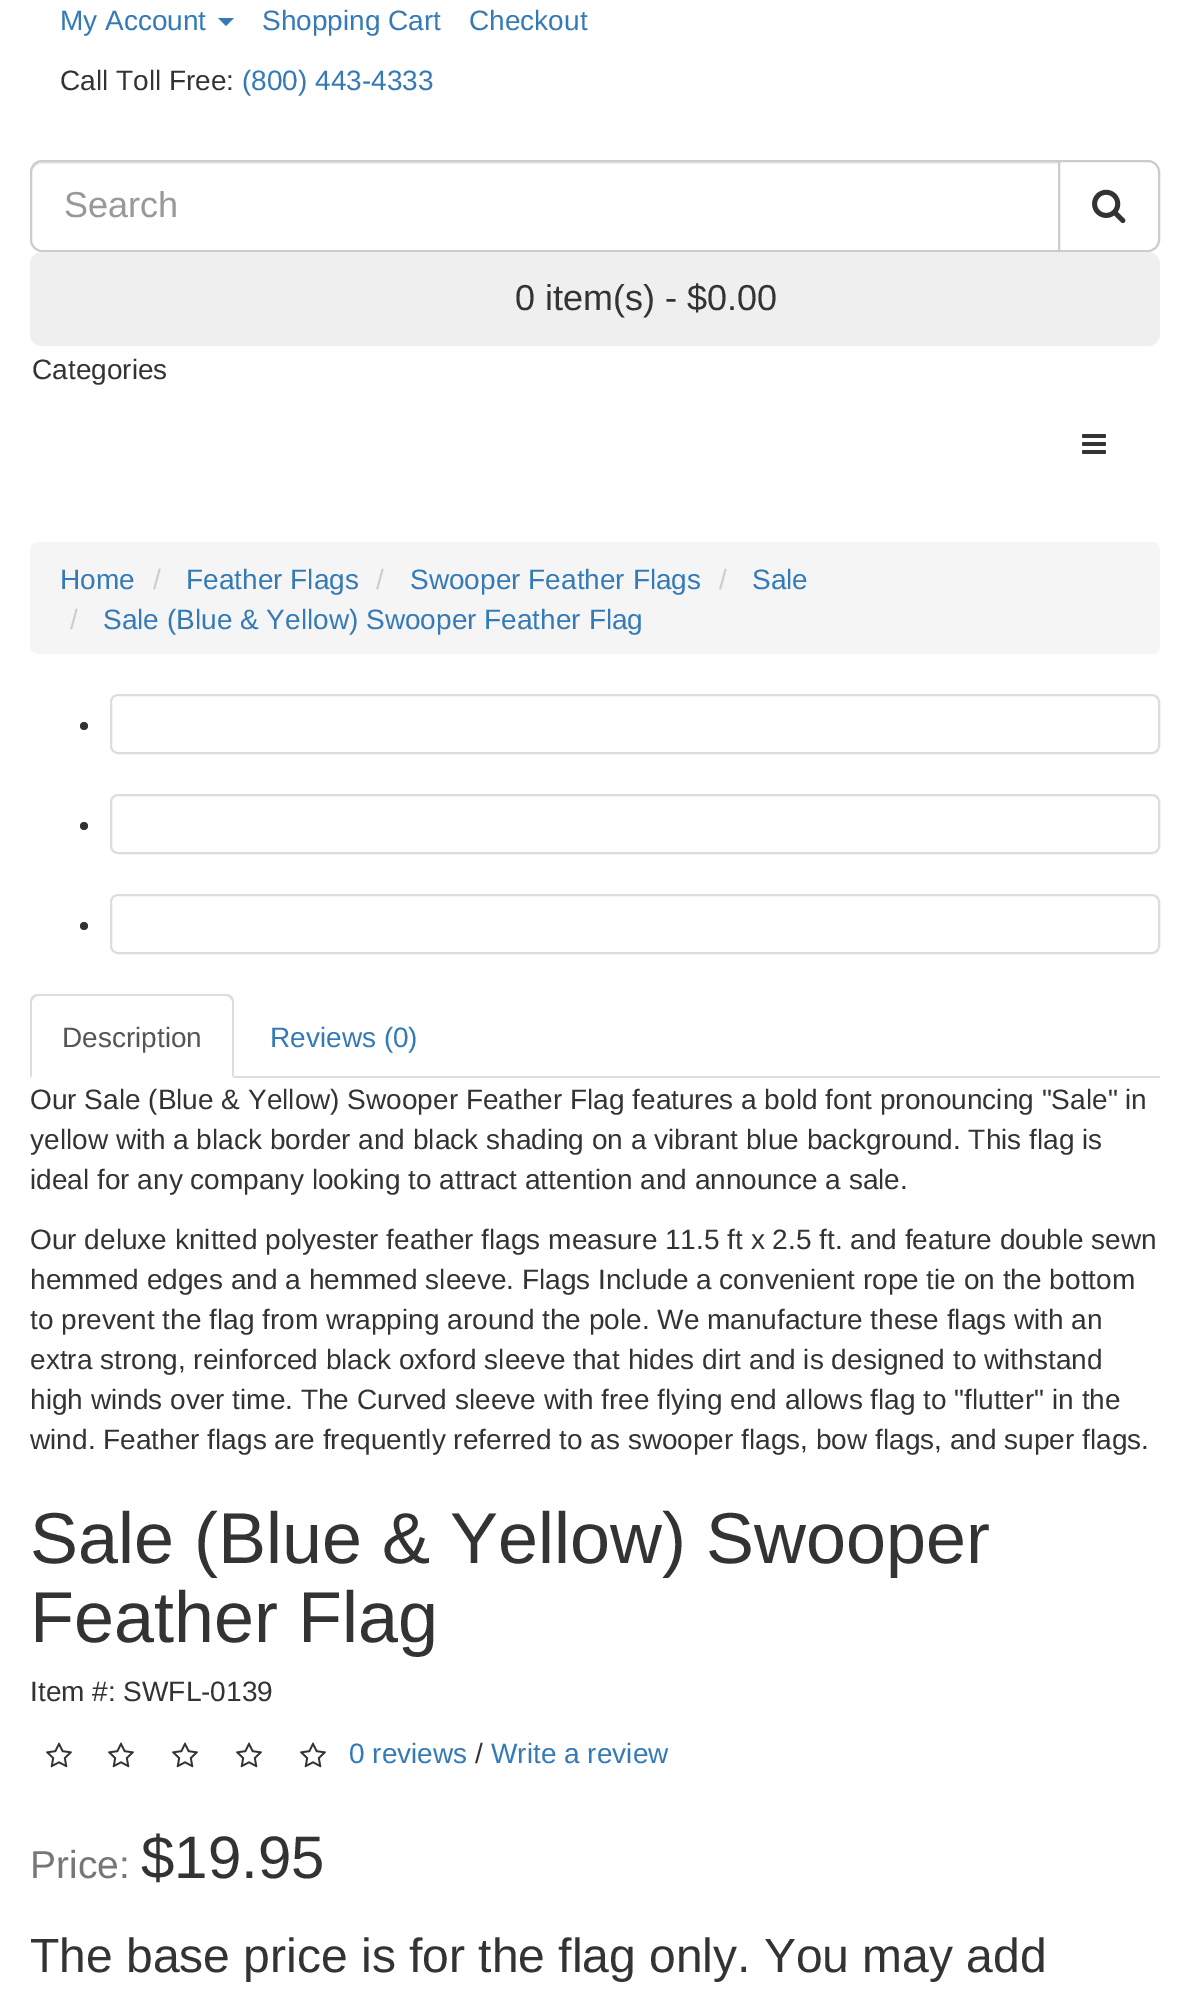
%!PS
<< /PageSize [1190 2004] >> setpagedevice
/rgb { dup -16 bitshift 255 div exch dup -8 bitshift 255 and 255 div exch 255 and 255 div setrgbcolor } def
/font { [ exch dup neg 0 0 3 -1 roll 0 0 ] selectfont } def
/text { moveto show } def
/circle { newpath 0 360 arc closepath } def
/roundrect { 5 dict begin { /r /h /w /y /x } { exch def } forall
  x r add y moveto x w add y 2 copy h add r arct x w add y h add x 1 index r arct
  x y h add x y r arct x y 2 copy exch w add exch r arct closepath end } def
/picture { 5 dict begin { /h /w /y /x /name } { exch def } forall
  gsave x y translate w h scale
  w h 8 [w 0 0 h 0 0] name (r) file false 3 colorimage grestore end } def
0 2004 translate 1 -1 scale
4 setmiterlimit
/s1 { /LiberationSans-Regular 28 font 16#337AB7 rgb } def
/s2 { /LiberationSans-Regular 28 font 16#333333 rgb } def
/s3 { /LiberationSans-Regular 36 font 16#999999 rgb } def
/s4 { /LiberationSans-Regular 36 font 16#333333 rgb } def
/s5 { /LiberationSans-Regular 28 font 16#CCCCCC rgb } def
/s6 { /LiberationSans-Regular 28 font 16#555555 rgb } def
/s7 { /LiberationSans-Regular 72 font 16#333333 rgb } def
/s8 { /LiberationSans-Regular 39 font 16#777777 rgb } def
/s9 { /LiberationSans-Regular 60 font 16#333333 rgb } def
/s10 { /LiberationSans-Regular 48 font 16#333333 rgb } def
16#FFFFFF rgb
0 0 1190 2004 rectfill
s1
(My Account) 60 30 text
218 18 moveto 234 18 lineto 226 26 lineto closepath fill
(Shopping Cart) 262 30 text
(Checkout) 469 30 text
s2
(Call Toll Free:) 60 90 text
s1
(\(800\) 443-4333) 242 90 text
16#ECECEC rgb
42 164 moveto 1058 164 lineto 1058 162 lineto 42 162 lineto 36 162 32 166 32 172 curveto 32 174 lineto 32 168 36 164 42 164 curveto closepath fill
16#CCCCCC rgb
2 setlinewidth
42 161 moveto 1059 161 lineto 1059 251 lineto 42 251 lineto 36 251 31 246 31 240 curveto 31 172 lineto 31 166 36 161 42 161 curveto closepath stroke
s3
(Search) 64 217 text
16#FFFFFF rgb
1059 161 moveto 1148 161 lineto 1154 161 1159 166 1159 172 curveto 1159 240 lineto 1159 246 1154 251 1148 251 curveto 1059 251 lineto closepath gsave fill grestore
16#CCCCCC rgb
stroke
(pic1.raw) 1092 189 34 35 picture
16#EFEFEF rgb
30 252 1130 94 12 roundrect fill
s4
(0 item\(s\) - $0.00) 515 310 text
s2
(Categories) 32 379 text
(pic2.raw) 1082 434 24 20 picture
16#F5F5F5 rgb
30 542 1130 112 8 roundrect fill
s1
(Home) 60 589 text
s5
(/) 153 589 text
s1
(Feather Flags) 186 589 text
s5
(/) 376 589 text
s1
(Swooper Feather Flags) 410 589 text
s5
(/) 719 589 text
s1
(Sale) 752 589 text
s5
(/) 70 629 text
s1
(Sale \(Blue & Yellow\) Swooper Feather Flag) 103 629 text
16#333333 rgb
84 726 4 circle fill
16#DDDDDD rgb
111 695 1048 58 7 roundrect stroke
16#333333 rgb
84 826 4 circle fill
16#DDDDDD rgb
111 795 1048 58 7 roundrect stroke
16#333333 rgb
84 926 4 circle fill
16#DDDDDD rgb
111 895 1048 58 7 roundrect stroke
234 1076 926 2 rectfill
38 994 moveto 36 994 34 995 32 996 curveto 34 998 lineto 35 997 36 996 38 996 curveto 226 996 lineto 228 996 229 997 230 998 curveto 232 996 lineto 230 995 228 994 226 994 curveto closepath fill
234 1078 moveto 234 1002 lineto 234 1000 233 998 232 996 curveto 230 998 lineto 232 1001 lineto 232 1076 lineto closepath fill
30 1078 moveto 32 1076 lineto 32 1001 lineto 34 998 lineto 32 996 lineto 31 998 30 1000 30 1002 curveto closepath fill
s6
(Description) 62 1047 text
s1
(Reviews \(0\)) 270 1047 text
s2
(Our Sale \(Blue & Yellow\) Swooper Feather Flag features a bold font pronouncing "Sale" in) 30 1109 text
(yellow with a black border and black shading on a vibrant blue background. This flag is) 30 1149 text
(ideal for any company looking to attract attention and announce a sale.) 30 1189 text
(Our deluxe knitted polyester feather flags measure 11.5 ft x 2.5 ft. and feature double sewn) 30 1249 text
(hemmed edges and a hemmed sleeve. Flags Include a convenient rope tie on the bottom) 30 1289 text
(to prevent the flag from wrapping around the pole. We manufacture these flags with an) 30 1329 text
(extra strong, reinforced black oxford sleeve that hides dirt and is designed to withstand) 30 1369 text
(high winds over time. The Curved sleeve with free flying end allows flag to "flutter" in the) 30 1409 text
(wind. Feather flags are frequently referred to as swooper flags, bow flags, and super flags.) 30 1449 text
s7
(Sale \(Blue & Yellow\) Swooper) 30 1563 text
(Feather Flag) 30 1642 text
s2
(Item #: SWFL-0139) 30 1701 text
(pic3.raw) 46 1742 26 26 picture
(pic3.raw) 108 1742 26 26 picture
(pic3.raw) 172 1742 26 26 picture
(pic3.raw) 236 1742 26 26 picture
(pic3.raw) 300 1742 26 26 picture
s1
(0 reviews) 349 1763 text
s2
(/) 475 1763 text
s1
(Write a review) 491 1763 text
s8
(Price:) 30 1878 text
s9
($19.95) 141 1878 text
s10
(The base price is for the flag only. You may add) 30 1972 text
showpage
